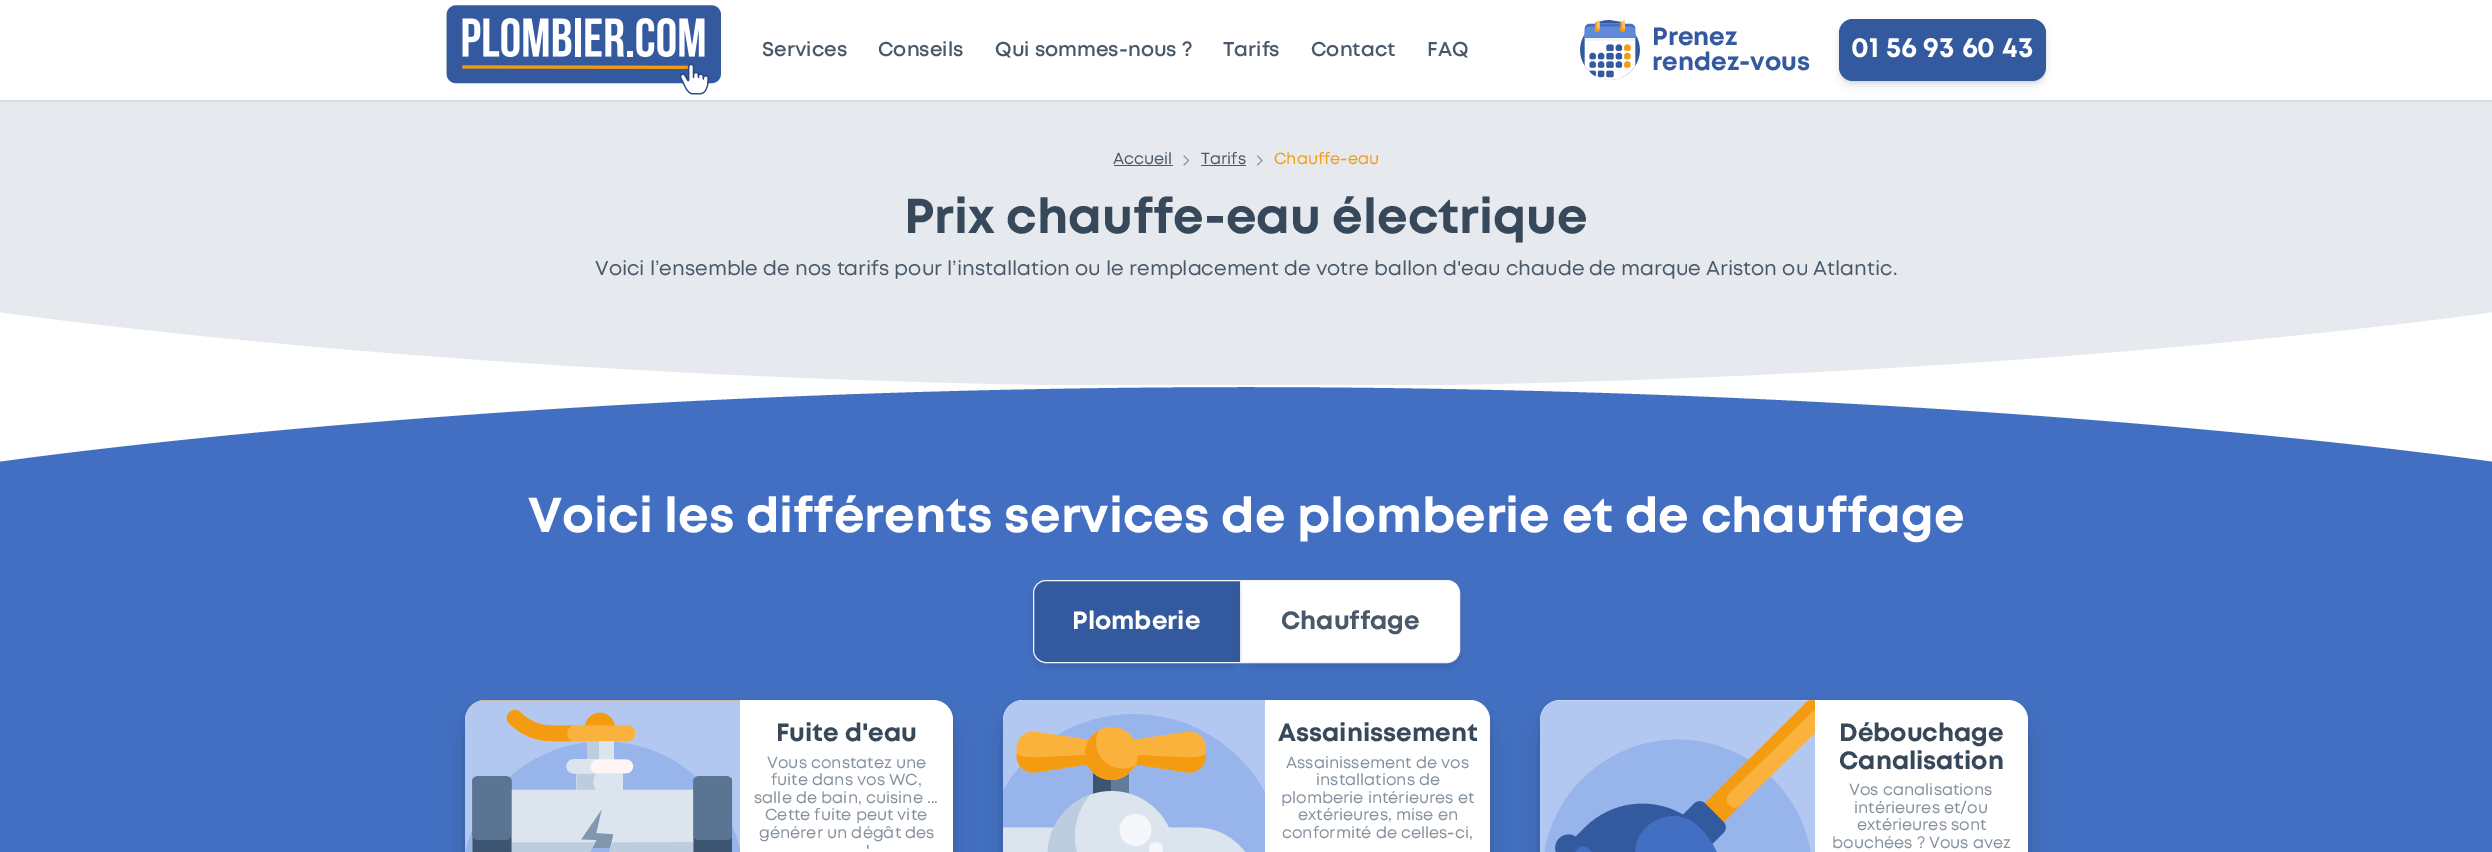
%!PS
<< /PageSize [2492 852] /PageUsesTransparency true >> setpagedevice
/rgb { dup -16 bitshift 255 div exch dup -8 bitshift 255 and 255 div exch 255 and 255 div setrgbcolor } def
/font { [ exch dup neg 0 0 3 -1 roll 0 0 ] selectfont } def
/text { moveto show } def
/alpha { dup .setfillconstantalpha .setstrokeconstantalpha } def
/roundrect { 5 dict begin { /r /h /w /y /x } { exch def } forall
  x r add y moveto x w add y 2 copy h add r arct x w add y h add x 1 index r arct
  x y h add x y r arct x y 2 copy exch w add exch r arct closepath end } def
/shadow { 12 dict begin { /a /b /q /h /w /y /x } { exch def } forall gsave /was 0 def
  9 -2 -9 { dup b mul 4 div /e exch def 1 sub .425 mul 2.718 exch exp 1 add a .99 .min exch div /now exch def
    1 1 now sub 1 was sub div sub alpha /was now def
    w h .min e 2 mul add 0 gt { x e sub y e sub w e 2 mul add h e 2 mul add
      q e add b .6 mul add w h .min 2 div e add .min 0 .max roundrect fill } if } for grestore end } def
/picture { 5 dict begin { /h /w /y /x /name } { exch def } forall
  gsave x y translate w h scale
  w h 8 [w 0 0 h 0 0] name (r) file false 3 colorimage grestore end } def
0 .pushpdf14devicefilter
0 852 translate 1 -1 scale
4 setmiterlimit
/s1 { /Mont-SemiBold 20 font 16#495969 rgb } def
/s2 { /Mont-Bold 25 font 16#33599E rgb } def
/s3 { /Mont-Bold 28 font 16#FFFFFF rgb } def
/s4 { /Mont-Regular 16 font 16#495969 rgb } def
/s5 { /Mont-Regular 16 font 16#F39C12 rgb } def
/s6 { /Mont-Bold 48.8 font 16#364859 rgb } def
/s7 { /Mont-Regular 20 font 16#495969 rgb } def
/s8 { /Mont-Bold 48.8 font 16#FFFFFF rgb } def
/s9 { /Mont-Bold 25 font 16#FFFFFF rgb } def
/s10 { /Mont-Bold 25 font 16#495969 rgb } def
/s11 { /Mont-Bold 25 font 16#364859 rgb } def
/s12 { /Mont-Regular 16 font 16#85919D rgb } def
16#FFFFFF rgb
0 0 2492 852 rectfill
16#E6EAEF rgb
0 100 2492 285 rectfill
gsave
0 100 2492 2 rectclip
16#000000 rgb
0 1 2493 100 0 1 0.12 shadow
grestore
(pic1.raw) 446 5 275 90 picture
s1
(Services) 762 56 text
(Conseils) 878 56 text
(Qui sommes-nous ?) 995 56 text
(Tarifs) 1223 56 text
(Contact) 1311 56 text
(FAQ) 1427 56 text
(pic2.raw) 1580 20 60 60 picture
s2
(Prenez) 1652 45 text
(rendez-vous) 1652 70 text
16#000000 rgb
1839 24 207 62 14 4 0.1 shadow
1839 20 207 63 14 1 0.05 shadow
16#33599E rgb
1839 19 207 62 14 roundrect fill
s3
(01 56 93 60 43) 1851 57 text
s4
(Accueil) 1113 164 text
1114 165 59 1 rectfill
16#85919D rgb
1 setlinecap
1 setlinejoin
1184 156 moveto 1188.5 160.5 lineto 1184 165 lineto stroke
s4
(Tarifs) 1201 164 text
1201 165 45 1 rectfill
16#85919D rgb
1257.5 156 moveto 1262 160.5 lineto 1257.5 165 lineto stroke
s5
(Chauffe-eau) 1274 164 text
s6
(Prix chauffe-eau électrique) 904 233 text
s7
(Voici l’ensemble de nos tarifs pour l’installation ou le remplacement de votre ballon d'eau chaude de marque Ariston ou Atlantic.) 595 275 text
16#FFFFFF rgb
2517 388 moveto -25 388 lineto -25 309 lineto -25 309 488 387 1246 387 curveto 2005 387 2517 309 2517 309 curveto closepath fill
16#426FC2 rgb
0 387 2492 465 rectfill
16#FFFFFF rgb
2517 385 moveto -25 385 lineto -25 465 lineto -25 465 488 387 1246 387 curveto 2005 387 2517 465 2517 465 curveto closepath fill
s8
(Voici les différents services de plomberie et de chauffage) 528 532 text
16#000000 rgb
1033 585 208 83 13 4 0.1 shadow
16#33599E rgb
1046 580.5 moveto 1240.5 580.5 lineto 1240.5 662.5 lineto 1046 662.5 lineto 1039 662.5 1033.5 657 1033.5 650 curveto 1033.5 593 lineto 1033.5 586 1039 580.5 1046 580.5 curveto closepath gsave fill grestore
16#F1F4F9 rgb
0 setlinecap
0 setlinejoin
stroke
s9
(Plomberie) 1072 629 text
16#000000 rgb
1241 585 219 83 13 4 0.1 shadow
16#FFFFFF rgb
1241.5 580.5 moveto 1447 580.5 lineto 1454 580.5 1459.5 586 1459.5 593 curveto 1459.5 650 lineto 1459.5 657 1454 662.5 1447 662.5 curveto 1241.5 662.5 lineto closepath gsave fill grestore
16#F1F4F9 rgb
stroke
s10
(Chauffage) 1281 629 text
16#000000 rgb
465 718 488 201 20 15.5 0.12 shadow
465 704 488 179 20 3.5 0.08 shadow
16#FFFFFF rgb
465 700 488 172 20 roundrect fill
(pic3.raw) 465 700 275 152 picture
s11
(Fuite d'eau) 776 741 text
s12
(Vous constatez une) 767 768 text
(fuite dans vos WC,) 771 785 text
(salle de bain, cuisine ...) 754 803 text
(Cette fuite peut vite) 765 820 text
(générer un dégât des) 759 838 text
(') 866 856 text
16#000000 rgb
1003 718 487 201 20 15.5 0.12 shadow
1003 704 487 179 20 3.5 0.08 shadow
16#FFFFFF rgb
1003 700 487 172 20 roundrect fill
(pic4.raw) 1003 700 262 152 picture
s11
(Assainissement) 1278 741 text
s12
(Assainissement de vos) 1286 768 text
(installations de) 1316 785 text
(plomberie intérieures et) 1281 803 text
(extérieures, mise en) 1298 820 text
(conformité de celles-ci,) 1282 838 text
16#000000 rgb
1540 718 488 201 20 15.5 0.12 shadow
1540 704 488 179 20 3.5 0.08 shadow
16#FFFFFF rgb
1540 700 488 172 20 roundrect fill
(pic5.raw) 1540 700 275 152 picture
s11
(Débouchage) 1839 741 text
(Canalisation) 1839 769 text
s12
(Vos canalisations) 1849 795 text
(intérieures et/ou) 1854 813 text
(extérieures sont) 1857 830 text
(bouchées ? Vous avez) 1832 848 text
.poppdf14devicefilter showpage
